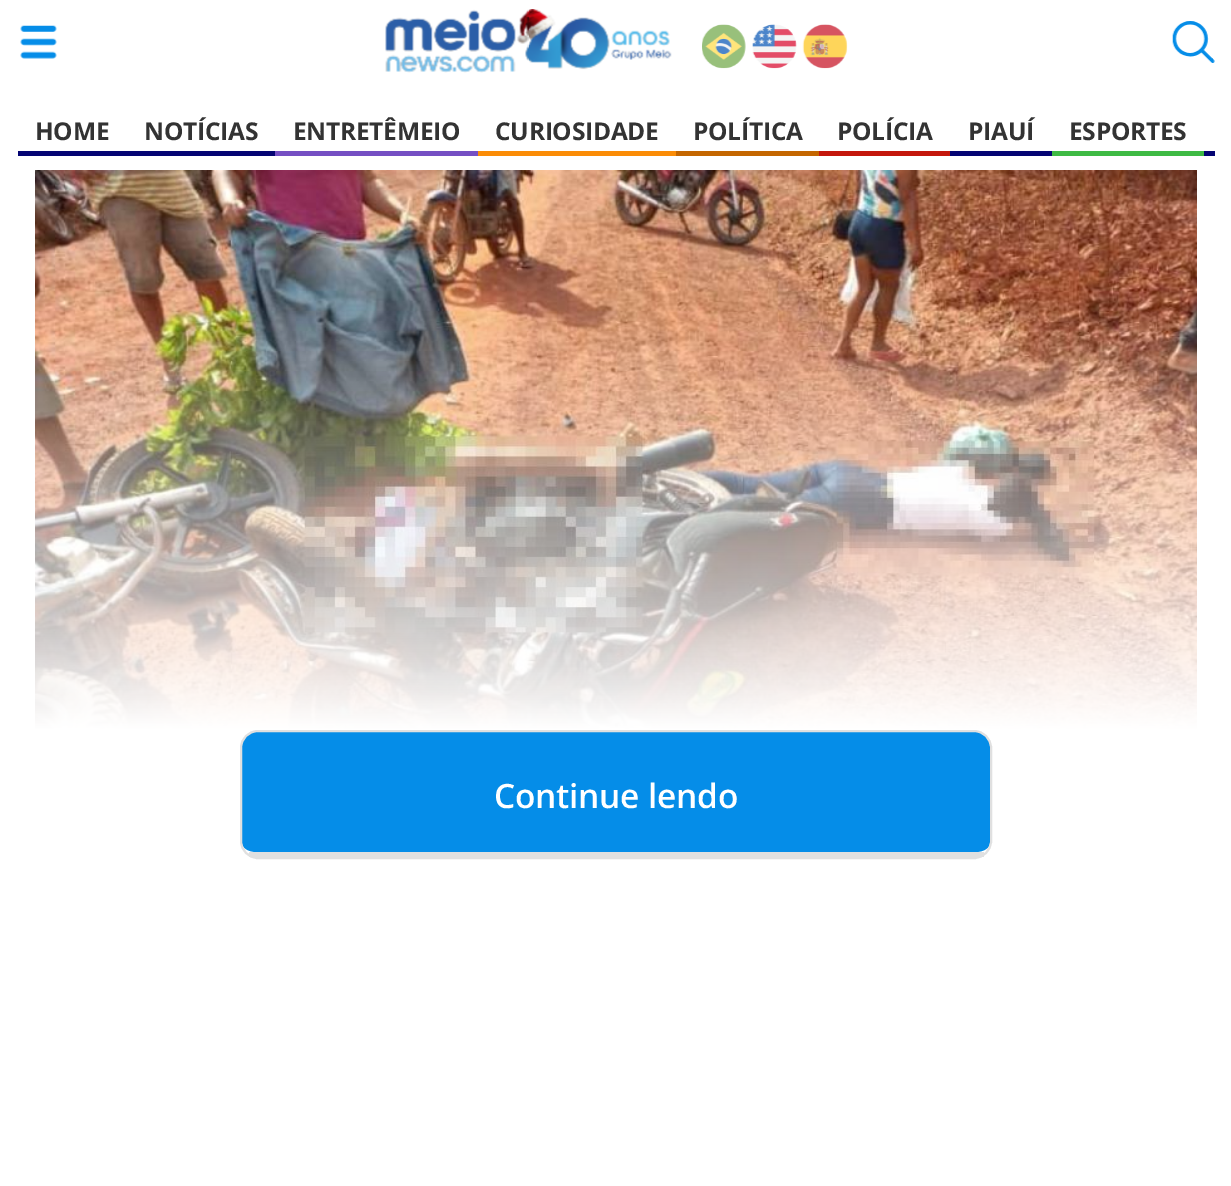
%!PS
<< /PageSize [1231 1186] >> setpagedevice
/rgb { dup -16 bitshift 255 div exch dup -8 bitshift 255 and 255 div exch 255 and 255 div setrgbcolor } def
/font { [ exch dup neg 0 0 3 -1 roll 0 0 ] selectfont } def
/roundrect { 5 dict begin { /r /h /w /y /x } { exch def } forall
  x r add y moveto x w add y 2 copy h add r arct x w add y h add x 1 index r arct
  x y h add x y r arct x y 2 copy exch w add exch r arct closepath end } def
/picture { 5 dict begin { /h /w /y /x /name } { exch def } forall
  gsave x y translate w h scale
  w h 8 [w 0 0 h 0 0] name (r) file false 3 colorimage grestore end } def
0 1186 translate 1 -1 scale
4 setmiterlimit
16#FFFFFF rgb
0 0 1231 1186 rectfill
(pic1.raw) 20 25 37 34 picture
(pic2.raw) 385 9 287 64 picture
(pic3.raw) 702 24 44 45 picture
(pic4.raw) 752 24 45 45 picture
(pic5.raw) 802 24 46 45 picture
(pic6.raw) 1172 21 43 42 picture
16#040473 rgb
18 151 257 5 rectfill
/OpenSans-Bold 24.5 font
16#333333 rgb
35 140 moveto -0.25 0 (HOME) ashow
144 140 moveto -0.25 0 (NOTÍCIAS) ashow
16#754FC3 rgb
275 151 203 5 rectfill
16#333333 rgb
293 140 moveto -0.25 0 (ENTRETÊMEIO) ashow
16#FB8C06 rgb
478 151 198 5 rectfill
16#333333 rgb
495 140 moveto -0.25 0 (CURIOSIDADE) ashow
16#C46600 rgb
676 151 143 5 rectfill
16#333333 rgb
693 140 moveto -0.25 0 (POLÍTICA) ashow
16#C4170C rgb
819 151 131 5 rectfill
16#333333 rgb
837 140 moveto -0.25 0 (POLÍCIA) ashow
16#040473 rgb
950 151 102 5 rectfill
16#333333 rgb
968 140 moveto -0.25 0 (PIAUÍ) ashow
16#3EBA44 rgb
1052 151 152 5 rectfill
16#333333 rgb
1069 140 moveto -0.25 0 (ESPORTES) ashow
16#040473 rgb
1204 151 11 5 rectfill
(pic7.raw) 35 170 1162 560 picture
16#058DE8 rgb
257 732 moveto 975 732 lineto 984 732 990 738 990 747 curveto 990 842 lineto 990 848 984 852 975 852 curveto 257 852 lineto 248 852 242 848 242 842 curveto 242 747 lineto 242 738 248 732 257 732 curveto closepath fill
16#E0E0E0 rgb
2 setlinewidth
241 731 750 127 17 roundrect stroke
249 852 735 5 rectfill
/OpenSans-SemiBold 33.5 font
16#FFFFFF rgb
494 808 moveto -0.25 0 (Continue lendo) ashow
showpage
